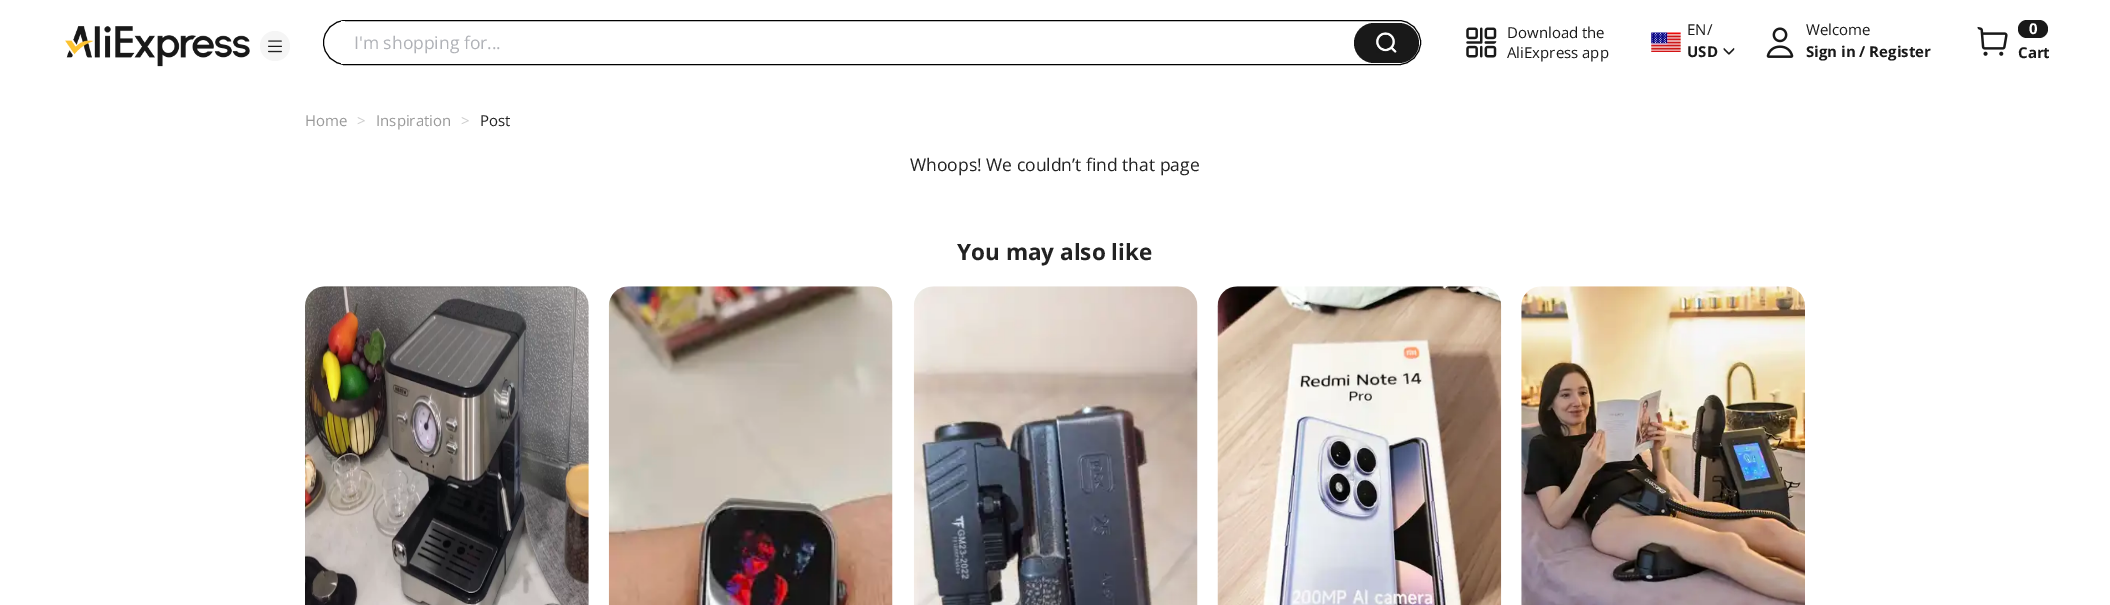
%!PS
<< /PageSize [2110 605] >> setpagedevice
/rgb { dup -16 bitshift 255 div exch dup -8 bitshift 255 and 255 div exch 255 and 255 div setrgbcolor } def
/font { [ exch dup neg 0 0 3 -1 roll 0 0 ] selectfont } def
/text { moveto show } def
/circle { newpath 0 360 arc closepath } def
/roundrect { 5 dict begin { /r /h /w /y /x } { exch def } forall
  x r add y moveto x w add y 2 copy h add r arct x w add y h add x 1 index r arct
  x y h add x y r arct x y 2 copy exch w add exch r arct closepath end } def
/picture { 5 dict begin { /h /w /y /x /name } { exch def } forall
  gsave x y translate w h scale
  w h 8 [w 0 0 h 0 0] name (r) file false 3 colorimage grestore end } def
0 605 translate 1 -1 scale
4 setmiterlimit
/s1 { /OpenSans-Regular 17.5 font 16#B0B2B7 rgb } def
/s2 { /OpenSans-Regular 15 font 16#191919 rgb } def
/s3 { /OpenSans-Bold 15 font 16#191919 rgb } def
/s4 { /OpenSans-Bold 15 font 16#FFFFFF rgb } def
/s5 { /OpenSans-Regular 15 font 16#999999 rgb } def
/s6 { /OpenSans-Regular 15 font 16#CCCCCC rgb } def
/s7 { /OpenSans-Regular 15 font 16#222222 rgb } def
/s8 { /OpenSans-Regular 17.5 font 16#222222 rgb } def
/s9 { /OpenSans-Bold 22.5 font 16#222222 rgb } def
16#FFFFFF rgb
0 0 2110 605 rectfill
(pic1.raw) 65 26 185 41 picture
16#F5F5F5 rgb
275 46 15 circle fill
(pic2.raw) 268 40 14 13 picture
16#000000 rgb
323.5 20.5 1097 44 22 roundrect stroke
16#FFFFFF rgb
341 21 4 43 rectfill
s1
(I'm shopping for...) 354 49 text
16#191919 rgb
1354 23 65 40 20 roundrect fill
(pic3.raw) 1376 32 21 21 picture
(pic4.raw) 1466 27 31 31 picture
s2
(Download the) 1507 38 text
(AliExpress app) 1507 58 text
(pic5.raw) 1651 32 30 20 picture
(EN/) 1687 35 text
s3
(USD) 1687 57 text
(pic6.raw) 1723 47 12 8 picture
(pic7.raw) 1766 27 28 31 picture
s2
(Welcome) 1806 35 text
s3
(Sign in / Register) 1806 57 text
(pic8.raw) 1977 26 31 30 picture
2018 20 30 18 9 roundrect fill
s4
(0) 2029 34 text
s3
(Cart) 2018 58 text
s5
(Home) 305 126 text
s6
(>) 357 126 text
s5
(Inspiration) 376 126 text
s6
(>) 461 126 text
s7
(Post) 480 126 text
s8
(Whoops! We couldn’t find that page) 910 171 text
s9
(You may also like) 957 260 text
(pic9.raw) 305 286 284 319 picture
(pic10.raw) 608 286 285 319 picture
(pic11.raw) 913 286 285 319 picture
(pic12.raw) 1217 286 285 319 picture
(pic13.raw) 1521 286 284 319 picture
showpage
